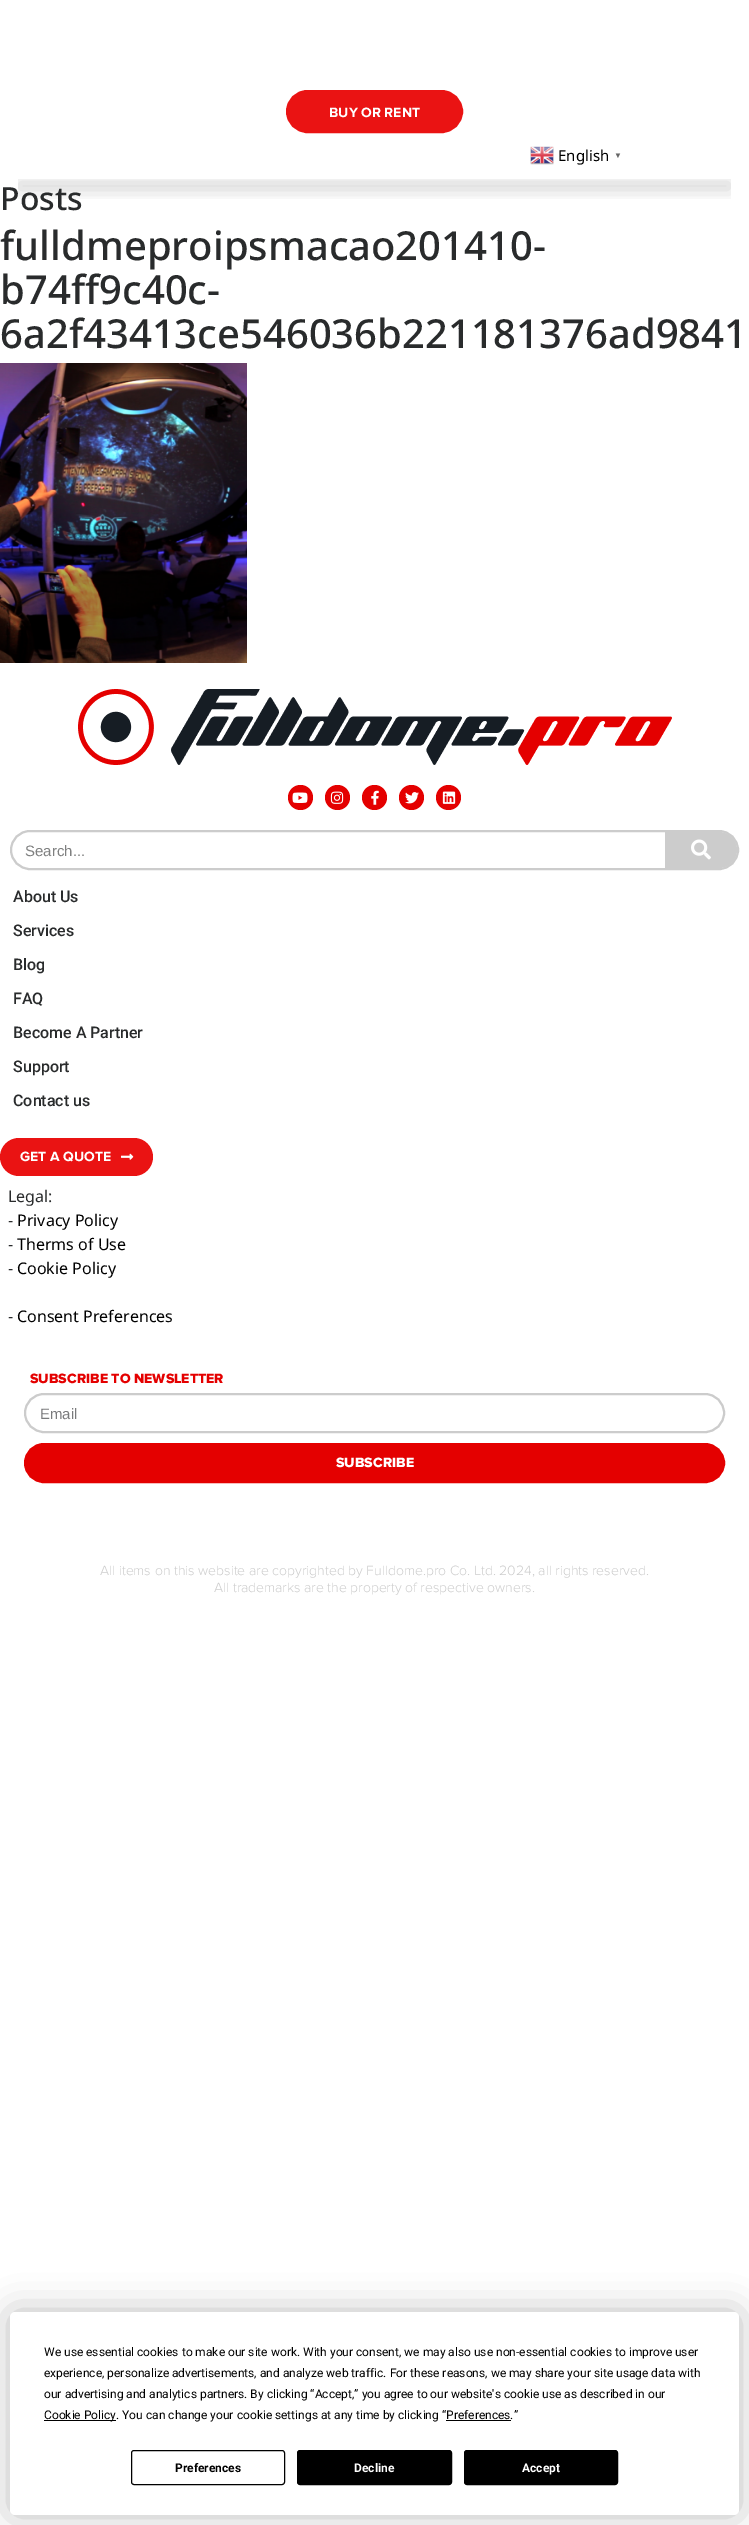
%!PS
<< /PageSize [749 2525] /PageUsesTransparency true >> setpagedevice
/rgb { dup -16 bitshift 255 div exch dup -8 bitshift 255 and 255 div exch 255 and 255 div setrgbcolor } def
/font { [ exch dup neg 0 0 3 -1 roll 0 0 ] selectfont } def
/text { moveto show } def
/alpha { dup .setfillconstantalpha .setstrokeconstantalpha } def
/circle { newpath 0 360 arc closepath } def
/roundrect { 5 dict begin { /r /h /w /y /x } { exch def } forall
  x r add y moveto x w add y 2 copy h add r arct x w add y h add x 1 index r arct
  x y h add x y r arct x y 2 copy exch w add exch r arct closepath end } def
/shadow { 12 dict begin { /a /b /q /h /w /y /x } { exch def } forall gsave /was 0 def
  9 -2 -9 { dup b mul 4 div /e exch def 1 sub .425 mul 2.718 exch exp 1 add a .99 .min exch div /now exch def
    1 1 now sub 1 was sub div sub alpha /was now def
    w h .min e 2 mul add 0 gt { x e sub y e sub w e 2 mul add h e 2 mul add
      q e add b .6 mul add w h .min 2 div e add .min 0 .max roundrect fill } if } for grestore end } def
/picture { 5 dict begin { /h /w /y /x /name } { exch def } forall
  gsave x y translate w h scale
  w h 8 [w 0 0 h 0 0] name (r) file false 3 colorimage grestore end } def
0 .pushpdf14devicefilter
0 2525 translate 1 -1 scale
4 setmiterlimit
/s1 { /ProximaNova-Bold 14 font 16#FFFFFF rgb } def
/s2 { /NotoSans-Regular 15 font 16#000000 rgb } def
/s3 { /LiberationSans-Bold 8 font 16#666666 rgb } def
/s4 { /NotoSans-Medium 32 font 16#292B2C rgb } def
/s5 { /NotoSans-Medium 40 font 16#292B2C rgb } def
/s6 { /LiberationSans-Regular 15 font 16#7F8080 rgb } def
/s7 { /Roboto-Medium 16 font 16#292B2C rgb } def
/s8 { /NotoSans-Regular 16 font 16#292B2C rgb } def
/s9 { /NotoSans-Regular 16 font 16#000000 rgb } def
/s10 { /ProximaNova-ExtraBold 14 font 16#E40000 rgb } def
/s11 { /LiberationSans-Regular 15 font 16#797A7C rgb } def
/s12 { /ProximaNova-ExtraBold 14 font 16#FFFFFF rgb } def
/s13 { /ProximaNova-Light 14 font 16#CCCCCC rgb } def
/s14 { /Roboto-Regular 12 font 16#000000 rgb } def
/s15 { /Roboto-Bold 12 font 16#000000 rgb } def
/s16 { /Roboto-Bold 12 font 16#FFFFFF rgb } def
16#FFFFFF rgb
0 0 749 2525 rectfill
16#EA1313 rgb
287 91 175 41 20.5 roundrect gsave fill grestore
2 setlinewidth
stroke
s1
(BUY OR RENT) 329 117 text
gsave
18 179 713 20 rectclip
16#212327 rgb
20 183 709 6 0 10 0.2 shadow
grestore
(pic1.raw) 530 146 24 19 picture
s2
(English) 558 161 text
s3
(▼) 614 158 text
s4
(Posts) 0 210 text
s5
(fulldmeproipsmacao201410-) 0 260 text
(b74ff9c40c-) 0 304 text
(6a2f43413ce546036b221181376ad9841) 0 348 text
(pic2.raw) 0 363 247 300 picture
(pic3.raw) 78 689 594 76 picture
16#E40000 rgb
300.5 797.5 12.5 circle fill
(pic4.raw) 292 792 16 11 picture
337.5 797.5 12.5 circle fill
(pic5.raw) 330 791 14 13 picture
374.5 797.5 12.5 circle fill
(pic6.raw) 371 790 8 15 picture
411.5 797.5 12.5 circle fill
(pic7.raw) 405 792 14 12 picture
448.5 797.5 12.5 circle fill
(pic8.raw) 442 791 14 13 picture
16#CCCCCC rgb
11 831 727 38 19 roundrect stroke
s6
(Search...) 25 856 text
16#CCCCCC rgb
665 832 moveto 719 832 lineto 729 832 737 840 737 850 curveto 737 860 729 868 719 868 curveto 665 868 lineto closepath fill
(pic9.raw) 691 839 20 21 picture
s7
(About Us) 13 902 text
(Services) 13 936 text
(Blog) 13 970 text
(FAQ) 13 1004 text
(Become A Partner) 13 1038 text
(Support) 13 1072 text
(Contact us) 13 1106 text
16#EA1313 rgb
0 1138 153 38 19 roundrect fill
s1
(GET A QUOTE) 20 1161 text
(pic10.raw) 121 1153 13 7 picture
s8
(Legal:) 8 1202 text
(-) 8 1226 text
s9
(Privacy Policy) 17 1226 text
s8
(-) 8 1250 text
s9
(Therms of Use) 17 1250 text
s8
(-) 8 1274 text
s9
(Cookie Policy) 17 1274 text
s8
(-) 8 1322 text
s9
(Consent Preferences) 17 1322 text
s10
(SUBSCRIBE TO NEWSLETTER) 30 1383 text
16#CCCCCC rgb
25 1394 699 38 19 roundrect stroke
s11
(Email) 40 1419 text
16#E40000 rgb
25 1444 699 38 19 roundrect gsave fill grestore
stroke
s12
(SUBSCRIBE) 336 1467 text
s13
(All items on this website are copyrighted by Fulldome.pro Co. Ltd. 2024, all rights reserved.) 100 1575 text
(All trademarks are the property of respective owners.) 214 1592 text
16#000000 rgb
10 2312 729 203 5 17.5 0.25 shadow
16#FFFFFF rgb
10 2312 729 203 5 roundrect fill
s14
(We use essential cookies to make our site work. With your consent, we may also use non-essential cookies to improve user) 44 2356 text
(experience, personalize advertisements, and analyze web traffic. For these reasons, we may share your site usage data with) 44 2377 text
(our advertising and analytics partners. By clicking “Accept,” you agree to our website's cookie use as described in our) 44 2398 text
44 2420 72 1 rectfill
(Cookie Policy. You can change your cookie settings at any time by clicking “Preferences.”) 44 2419 text
446 2420 65 1 rectfill
1 setlinewidth
131.5 2450.5 153 34 2.5 roundrect stroke
s15
(Preferences) 175 2472 text
297.5 2450.5 154 34 2.5 roundrect gsave fill grestore
stroke
s16
(Decline) 354 2472 text
16#000000 rgb
464.5 2450.5 153 34 2.5 roundrect gsave fill grestore
stroke
s16
(Accept) 522 2472 text
.poppdf14devicefilter showpage
